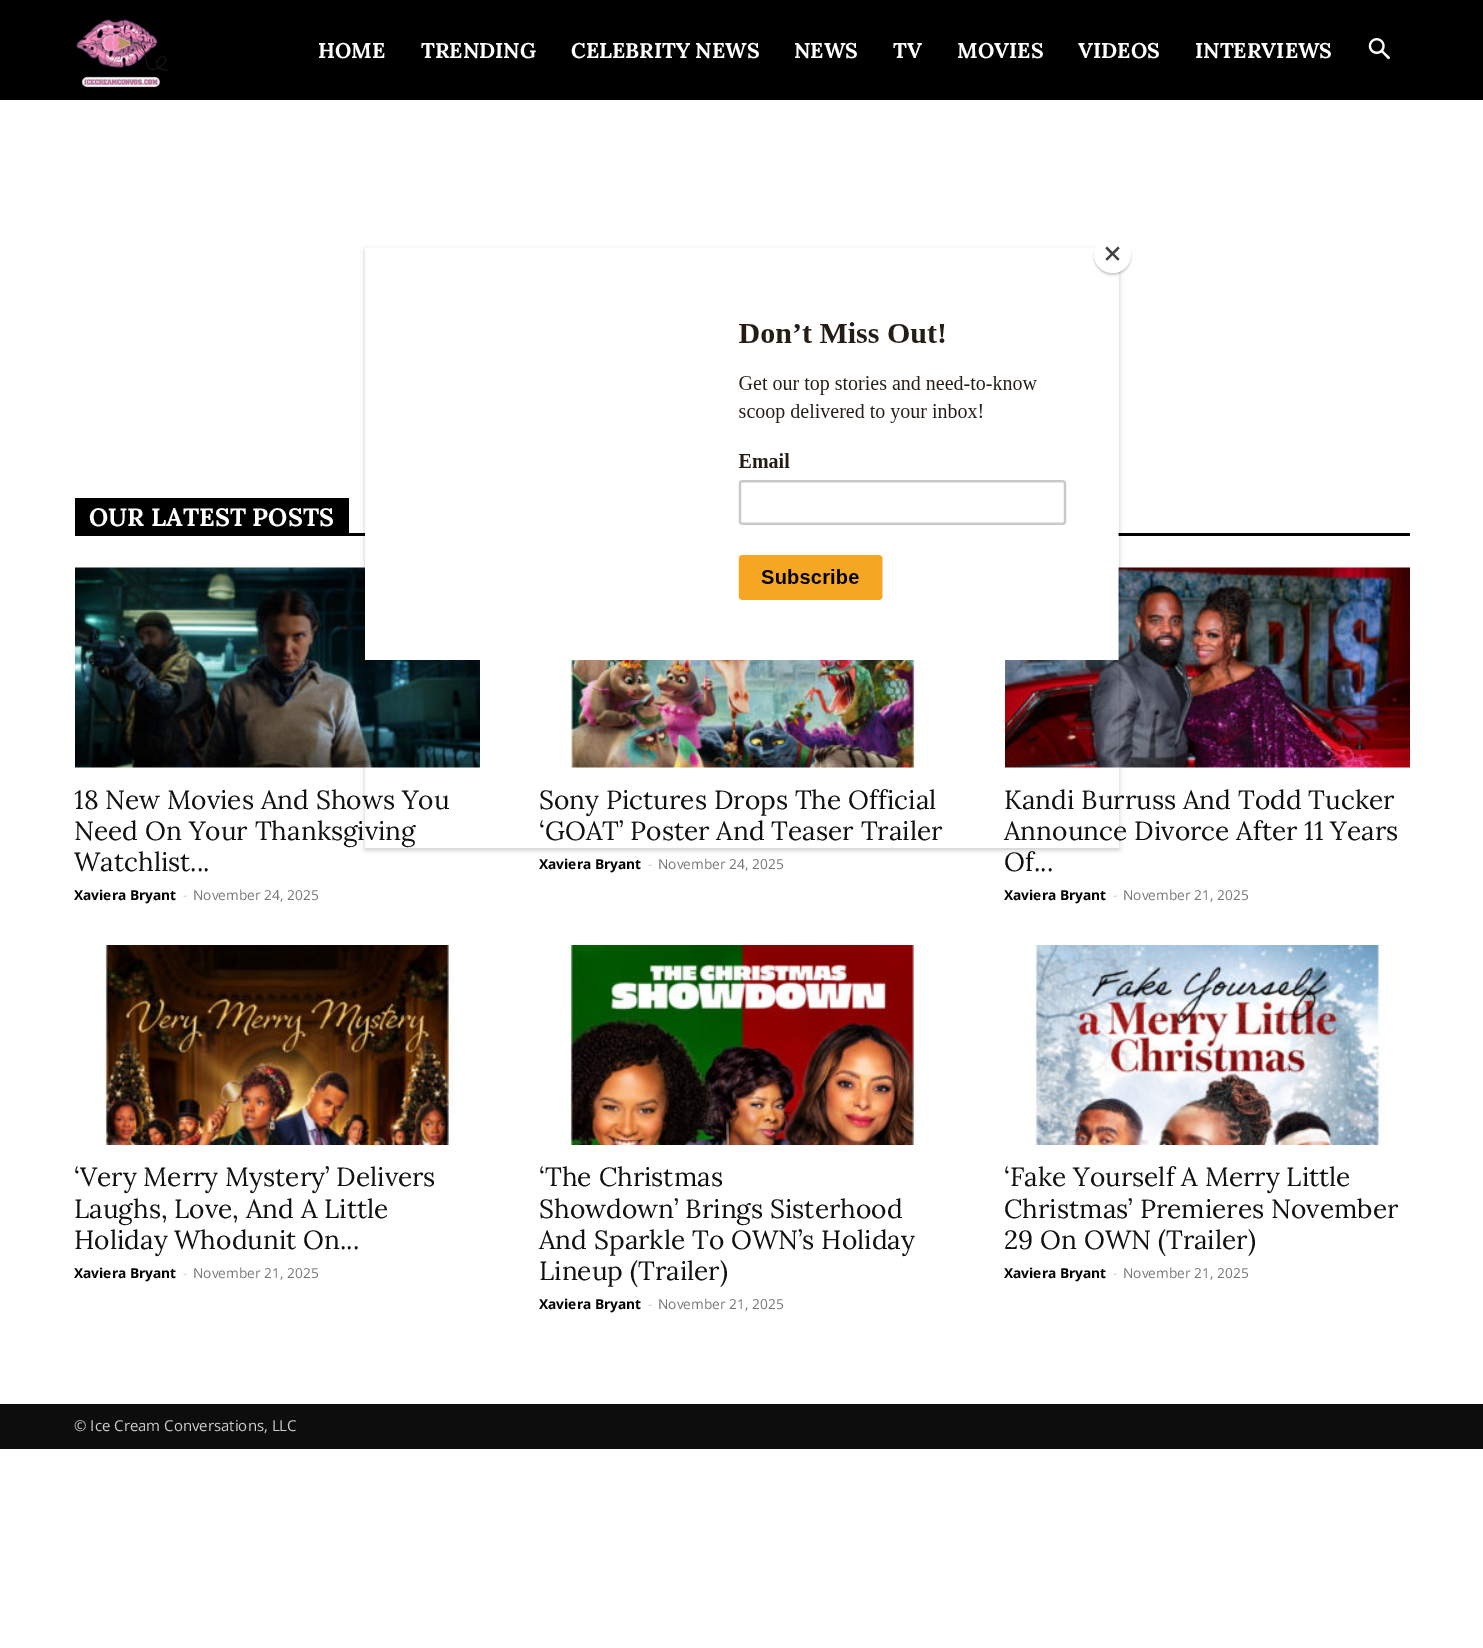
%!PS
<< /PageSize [1483 1648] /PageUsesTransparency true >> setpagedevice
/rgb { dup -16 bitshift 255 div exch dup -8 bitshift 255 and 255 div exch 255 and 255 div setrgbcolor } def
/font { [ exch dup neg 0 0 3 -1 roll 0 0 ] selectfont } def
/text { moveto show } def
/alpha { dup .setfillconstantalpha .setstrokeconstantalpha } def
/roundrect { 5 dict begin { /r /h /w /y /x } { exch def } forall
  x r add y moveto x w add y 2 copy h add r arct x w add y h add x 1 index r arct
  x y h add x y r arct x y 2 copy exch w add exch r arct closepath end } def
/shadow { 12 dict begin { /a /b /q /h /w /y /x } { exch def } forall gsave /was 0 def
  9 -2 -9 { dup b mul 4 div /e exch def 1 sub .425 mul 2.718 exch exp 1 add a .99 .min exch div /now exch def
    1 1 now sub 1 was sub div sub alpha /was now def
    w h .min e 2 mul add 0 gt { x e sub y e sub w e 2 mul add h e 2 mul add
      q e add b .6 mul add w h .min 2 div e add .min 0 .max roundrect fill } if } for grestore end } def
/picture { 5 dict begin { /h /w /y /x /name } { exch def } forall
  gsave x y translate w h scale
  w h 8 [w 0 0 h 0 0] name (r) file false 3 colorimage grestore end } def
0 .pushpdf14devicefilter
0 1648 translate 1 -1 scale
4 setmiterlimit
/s1 { /Lora-Bold 21.25 font 16#FFFFFF rgb } def
/s2 { /Lora-Bold 25 font 16#FFFFFF rgb } def
/s3 { /Lora-Regular 26.25 font 16#111111 rgb } def
/s4 { /OpenSans-Bold 13.75 font 16#000000 rgb } def
/s5 { /OpenSans-Regular 13.75 font 16#CCCCCC rgb } def
/s6 { /OpenSans-Regular 13.75 font 16#767676 rgb } def
/s7 { /OpenSans-Regular 15 font 16#CCCCCC rgb } def
16#FFFFFF rgb
0 0 1483 1648 rectfill
16#000000 rgb
0 0 1483 100 rectfill
(pic1.raw) 76 19 92 69 picture
s1
(HOME) 318 58 text
(TRENDING) 421 58 text
(CELEBRITY NEWS) 571 58 text
(NEWS) 794 58 text
(TV) 893 58 text
(MOVIES) 957 58 text
(VIDEOS) 1078 58 text
(INTERVIEWS) 1195 58 text
(pic2.raw) 1368 38 22 22 picture
16#000000 rgb
75 533 1335 3 rectfill
75 498 274 35 rectfill
s2
(OUR LATEST POSTS) 89 526 text
(pic3.raw) 75 567 405 201 picture
s3
(18 New Movies And Shows You) 74 809 text
(Need On Your Thanksgiving) 74 840 text
(Watchlist...) 74 871 text
s4
(Xaviera Bryant) 74 900 text
s5
(-) 183 900 text
s6
(November 24, 2025) 193 900 text
(pic4.raw) 570 660 350 108 picture
s3
(Sony Pictures Drops The Official) 539 809 text
(‘GOAT’ Poster And Teaser Trailer) 539 840 text
s4
(Xaviera Bryant) 539 869 text
s5
(-) 648 869 text
s6
(November 24, 2025) 658 869 text
(pic5.raw) 1005 567 405 201 picture
s3
(Kandi Burruss And Todd Tucker) 1004 809 text
(Announce Divorce After 11 Years) 1004 840 text
(Of...) 1004 871 text
s4
(Xaviera Bryant) 1004 900 text
s5
(-) 1113 900 text
s6
(November 21, 2025) 1123 900 text
(pic6.raw) 105 945 350 200 picture
s3
(‘Very Merry Mystery’ Delivers) 74 1186 text
(Laughs, Love, And A Little) 74 1218 text
(Holiday Whodunit On...) 74 1249 text
s4
(Xaviera Bryant) 74 1278 text
s5
(-) 183 1278 text
s6
(November 21, 2025) 193 1278 text
(pic7.raw) 570 945 350 200 picture
s3
(‘The Christmas) 539 1186 text
(Showdown’ Brings Sisterhood) 539 1218 text
(And Sparkle To OWN’s Holiday) 539 1249 text
(Lineup \(Trailer\)) 539 1280 text
s4
(Xaviera Bryant) 539 1309 text
s5
(-) 648 1309 text
s6
(November 21, 2025) 658 1309 text
(pic8.raw) 1035 945 350 200 picture
s3
(‘Fake Yourself A Merry Little) 1004 1186 text
(Christmas’ Premieres November) 1004 1218 text
(29 On OWN \(Trailer\)) 1004 1249 text
s4
(Xaviera Bryant) 1004 1278 text
s5
(-) 1113 1278 text
s6
(November 21, 2025) 1123 1278 text
16#0D0D0D rgb
0 1404 1483 45 rectfill
s7
(© Ice Cream Conversations, LLC) 74 1431 text
gsave
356 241 moveto 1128 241 lineto 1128 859 lineto 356 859 lineto closepath 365 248 moveto 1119 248 lineto 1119 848 lineto 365 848 lineto closepath eoclip newpath
16#000000 rgb
365 250 754 600 0 2.5 0.2 shadow
grestore
(pic9.raw) 365 248 754 412 picture
16#000000 rgb
1094 238 37 37 18.5 1 0.2 shadow
16#FFFFFF rgb
1094 235 37 38 18.5 roundrect fill
16#414141 rgb
1118 246.5 moveto 1119.5 248.5 lineto 1107 260.5 lineto 1105.5 259 lineto closepath fill
1105.5 248.5 moveto 1107 246.5 lineto 1119.5 259 lineto 1118 260.5 lineto closepath fill
.poppdf14devicefilter showpage
